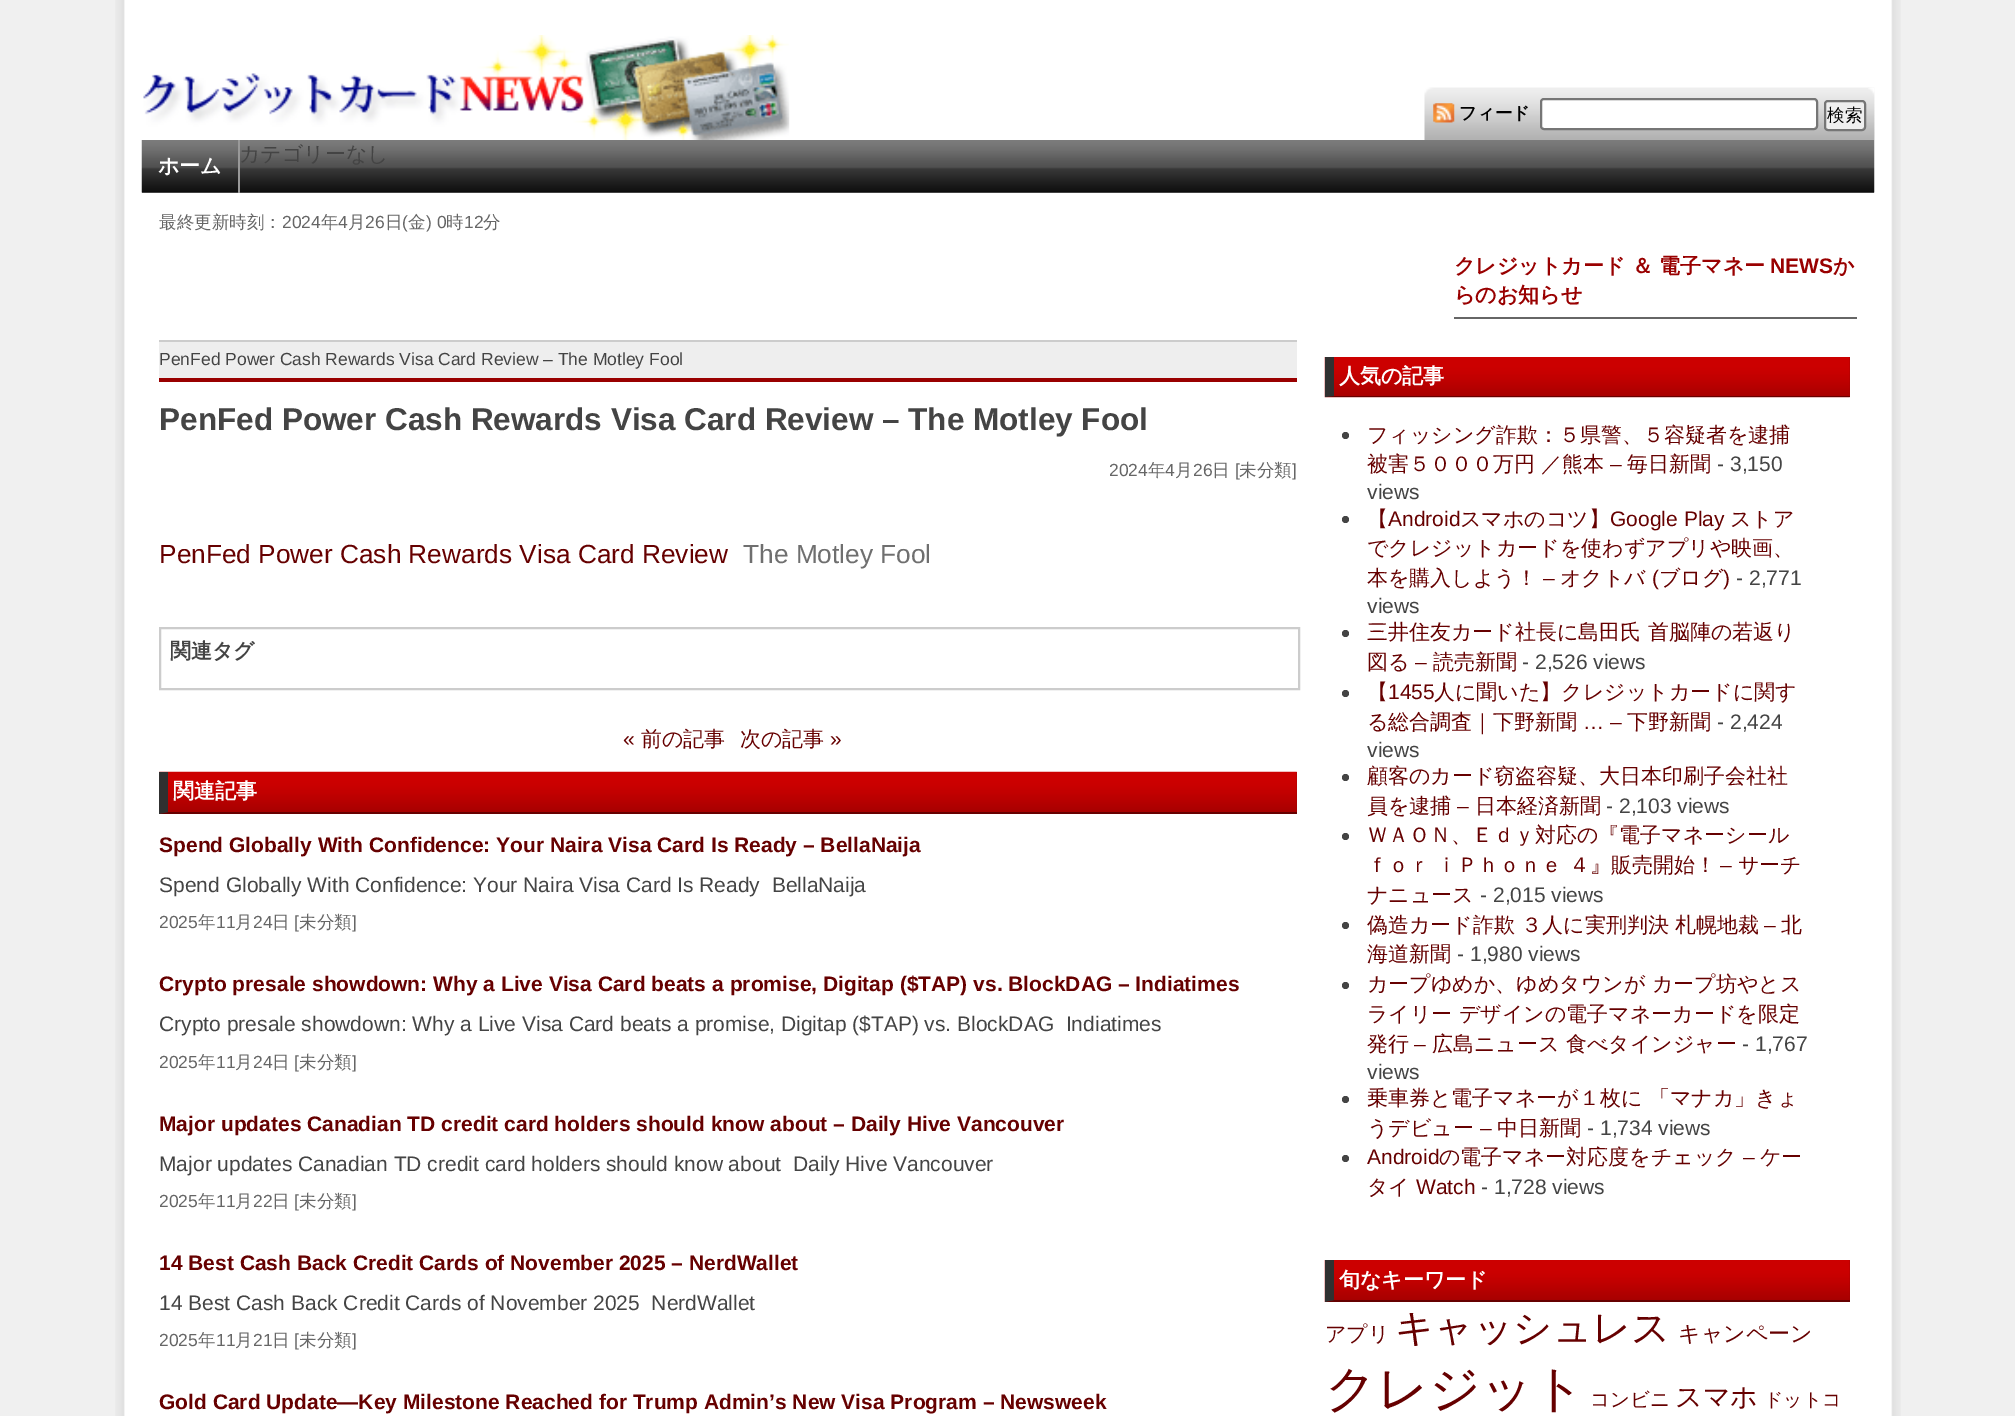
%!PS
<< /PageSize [2015 1416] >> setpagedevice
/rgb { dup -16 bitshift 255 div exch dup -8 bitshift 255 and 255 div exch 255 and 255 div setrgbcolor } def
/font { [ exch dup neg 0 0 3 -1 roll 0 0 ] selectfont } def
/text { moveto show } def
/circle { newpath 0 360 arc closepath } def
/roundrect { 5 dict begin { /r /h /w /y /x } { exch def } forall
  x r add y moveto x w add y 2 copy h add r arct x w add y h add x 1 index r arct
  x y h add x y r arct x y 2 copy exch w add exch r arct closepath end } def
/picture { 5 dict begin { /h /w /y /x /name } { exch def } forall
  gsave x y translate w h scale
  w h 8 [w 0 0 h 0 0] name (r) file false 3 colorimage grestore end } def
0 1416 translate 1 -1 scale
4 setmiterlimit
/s1 { /WenQuanYiZenHei-Bold 17.5 font 16#000000 rgb } def
/s2 { /WenQuanYiZenHei-Medium 17.5 font 16#000000 rgb } def
/s3 { /WenQuanYiZenHei-Medium 21 font 16#444444 rgb } def
/s4 { /WenQuanYiZenHei-Bold 21 font 16#FFFFFF rgb } def
/s5 { /WenQuanYiZenHei-Medium 17.5 font 16#666666 rgb } def
/s6 { /LiberationSans-Regular 17.5 font 16#666666 rgb } def
/s7 { /WenQuanYiZenHei-Bold 21 font 16#990000 rgb } def
/s8 { /LiberationSans-Bold 21 font 16#990000 rgb } def
/s9 { /LiberationSans-Regular 17.5 font 16#444444 rgb } def
/s10 { /LiberationSans-Bold 31.5 font 16#444444 rgb } def
/s11 { /LiberationSans-Regular 26.25 font 16#660000 rgb } def
/s12 { /LiberationSans-Regular 26.25 font 16#6F6F6F rgb } def
/s13 { /WenQuanYiZenHei-Bold 21 font 16#444444 rgb } def
/s14 { /LiberationSans-Regular 21 font 16#660000 rgb } def
/s15 { /WenQuanYiZenHei-Medium 21 font 16#660000 rgb } def
/s16 { /LiberationSans-Bold 21 font 16#660000 rgb } def
/s17 { /LiberationSans-Regular 21 font 16#444444 rgb } def
/s18 { /WenQuanYiZenHei-Medium 38.5 font 16#660000 rgb } def
/s19 { /WenQuanYiZenHei-Medium 22 font 16#660000 rgb } def
/s20 { /WenQuanYiZenHei-Medium 50.75 font 16#660000 rgb } def
/s21 { /WenQuanYiZenHei-Medium 19.5 font 16#660000 rgb } def
/s22 { /WenQuanYiZenHei-Medium 27 font 16#660000 rgb } def
/s23 { /WenQuanYiZenHei-Medium 19 font 16#660000 rgb } def
16#F0F0F0 rgb
0 0 2015 1416 rectfill
(pic1.raw) 115 0 1786 1416 picture
(pic2.raw) 143 35 647 105 picture
(pic3.raw) 1424 87 451 53 picture
(pic4.raw) 1433 103 22 20 picture
s1
(フィード) 1459 119 text
(pic5.raw) 1868 87 7 53 picture
16#FFFFFF rgb
1541 99 276 30 3 roundrect gsave fill grestore
16#767676 rgb
2 setlinewidth
stroke
16#EFEFEF rgb
1825 101 40 29 3 roundrect gsave fill grestore
16#767676 rgb
stroke
s2
(検索) 1827 121 text
16#7B7B7B rgb
142 192 1732 1 rectfill
(pic6.raw) 141 140 1734 53 picture
s3
(カテゴリーなし) 239 161 text
16#999999 rgb
238 140 2 53 rectfill
s4
(ホーム) 158 173 text
s5
(最終更新時刻：) 159 228 text
s6
(2024) 282 228 text
s5
(年) 321 228 text
s6
(4) 338 228 text
s5
(月) 348 228 text
s6
(26) 365 228 text
s5
(日) 385 228 text
s6
(\() 402 228 text
s5
(金) 408 228 text
s6
(\) 0) 426 228 text
s5
(時) 446 228 text
s6
(12) 464 228 text
s5
(分) 483 228 text
1454 317 403 2 rectfill
s7
(クレジットカード ＆ 電子マネー) 1454 273 text
s8
(NEWS) 1770 273 text
s7
(か) 1833 273 text
(らのお知らせ) 1454 302 text
16#EEEEEE rgb
159 342 1138 36 rectfill
16#CCCCCC rgb
159 340 1138 2 rectfill
16#990000 rgb
159 378 1138 4 rectfill
s9
(PenFed Power Cash Rewards Visa Card Review – The Motley Fool) 159 365 text
s10
(PenFed Power Cash Rewards Visa Card Review – The Motley Fool) 159 430 text
s6
(2024) 1109 476 text
s5
(年) 1148 476 text
s6
(4) 1165 476 text
s5
(月) 1175 476 text
s6
(26) 1193 476 text
s5
(日) 1212 476 text
s6
([) 1235 476 text
s5
(未分類) 1239 476 text
s6
(]) 1292 476 text
s11
(PenFed Power Cash Rewards Visa Card Review) 159 563 text
s12
(The Motley Fool) 743 563 text
16#CCCCCC rgb
160 628 1139 61 rectstroke
s13
(関連タグ) 170 658 text
s14
(«) 623 746 text
s15
(前の記事) 641 746 text
(次の記事) 740 746 text
s14
(») 830 746 text
(pic7.raw) 159 771 1138 43 picture
1297 814 moveto 159 814 lineto 168 812 lineto 1297 812 lineto closepath fill
16#303030 rgb
159 814 moveto 159 772 lineto 168 772 lineto 168 812 lineto closepath fill
s4
(関連記事) 173 798 text
s16
(Spend Globally With Confidence: Your Naira Visa Card Is Ready – BellaNaija) 159 852 text
s17
(Spend Globally With Confidence: Your Naira Visa Card Is Ready  BellaNaija) 159 892 text
s6
(2025) 159 928 text
s5
(年) 198 928 text
s6
(11) 216 928 text
s5
(月) 235 928 text
s6
(24) 253 928 text
s5
(日) 272 928 text
s6
([) 294 928 text
s5
(未分類) 299 928 text
s6
(]) 352 928 text
s16
(Crypto presale showdown: Why a Live Visa Card beats a promise, Digitap \($TAP\) vs. BlockDAG – Indiatimes) 159 991 text
s17
(Crypto presale showdown: Why a Live Visa Card beats a promise, Digitap \($TAP\) vs. BlockDAG  Indiatimes) 159 1031 text
s6
(2025) 159 1068 text
s5
(年) 198 1068 text
s6
(11) 216 1068 text
s5
(月) 235 1068 text
s6
(24) 253 1068 text
s5
(日) 272 1068 text
s6
([) 294 1068 text
s5
(未分類) 299 1068 text
s6
(]) 352 1068 text
s16
(Major updates Canadian TD credit card holders should know about – Daily Hive Vancouver) 159 1131 text
s17
(Major updates Canadian TD credit card holders should know about  Daily Hive Vancouver) 159 1171 text
s6
(2025) 159 1207 text
s5
(年) 198 1207 text
s6
(11) 216 1207 text
s5
(月) 235 1207 text
s6
(22) 253 1207 text
s5
(日) 272 1207 text
s6
([) 294 1207 text
s5
(未分類) 299 1207 text
s6
(]) 352 1207 text
s16
(14 Best Cash Back Credit Cards of November 2025 – NerdWallet) 159 1270 text
s17
(14 Best Cash Back Credit Cards of November 2025  NerdWallet) 159 1310 text
s6
(2025) 159 1346 text
s5
(年) 198 1346 text
s6
(11) 216 1346 text
s5
(月) 235 1346 text
s6
(21) 253 1346 text
s5
(日) 272 1346 text
s6
([) 294 1346 text
s5
(未分類) 299 1346 text
s6
(]) 352 1346 text
s16
(Gold Card Update—Key Milestone Reached for Trump Admin’s New Visa Program – Newsweek) 159 1409 text
(pic8.raw) 1324 357 526 41 picture
1850 397 moveto 1325 397 lineto 1334 396 lineto 1850 396 lineto closepath fill
16#303030 rgb
1325 397 moveto 1325 357 lineto 1334 357 lineto 1334 396 lineto closepath fill
s4
(人気の記事) 1339 383 text
16#444444 rgb
1345.5 435.5 3.5 circle fill
s15
(フィッシング詐欺：５県警、５容疑者を逮捕) 1367 442 text
(被害５０００万円 ／熊本) 1367 471 text
s14
(–) 1610 471 text
s15
(毎日新聞) 1627 471 text
s17
(- 3,150) 1717 471 text
(views) 1367 499 text
1345.5 519.5 3.5 circle fill
s15
(【) 1367 526 text
s14
(Android) 1388 526 text
s15
(スマホのコツ】) 1460 526 text
s14
(Google Play) 1610 526 text
s15
(ストア) 1730 526 text
(でクレジットカードを使わずアプリや映画、) 1367 555 text
(本を購入しよう！) 1367 585 text
s14
(–) 1543 585 text
s15
(オクトバ) 1560 585 text
s14
(\() 1652 585 text
s15
(ブログ) 1659 585 text
s14
(\)) 1723 585 text
s17
(- 2,771) 1736 585 text
(views) 1367 613 text
1345.5 633.5 3.5 circle fill
s15
(三井住友カード社長に島田氏 首脳陣の若返り) 1367 639 text
(図る) 1367 669 text
s14
(–) 1415 669 text
s15
(読売新聞) 1433 669 text
s17
(- 2,526 views) 1522 669 text
1345.5 693.5 3.5 circle fill
s15
(【) 1367 699 text
s14
(1455) 1388 699 text
s15
(人に聞いた】クレジットカードに関す) 1434 699 text
(る総合調査｜下野新聞) 1367 729 text
s14
(… –) 1583 729 text
s15
(下野新聞) 1627 729 text
s17
(- 2,424) 1717 729 text
(views) 1367 757 text
1345.5 777.5 3.5 circle fill
s15
(顧客のカード窃盗容疑、大日本印刷子会社社) 1367 783 text
(員を逮捕) 1367 813 text
s14
(–) 1457 813 text
s15
(日本経済新聞) 1475 813 text
s17
(- 2,103 views) 1606 813 text
1345.5 836.5 3.5 circle fill
s15
(ＷＡＯＮ、Ｅｄｙ対応の『電子マネーシール) 1367 842 text
(ｆｏｒ ｉＰｈｏｎｅ ４』販売開始！) 1367 872 text
s14
(–) 1720 872 text
s15
(サーチ) 1738 872 text
(ナニュース) 1367 902 text
s17
(- 2,015 views) 1480 902 text
1345.5 925.5 3.5 circle fill
s15
(偽造カード詐欺 ３人に実刑判決 札幌地裁) 1367 932 text
s14
(–) 1764 932 text
s15
(北) 1781 932 text
(海道新聞) 1367 961 text
s17
(- 1,980 views) 1457 961 text
1345.5 985.5 3.5 circle fill
s15
(カープゆめか、ゆめタウンが カープ坊やとス) 1367 991 text
(ライリー デザインの電子マネーカードを限定) 1367 1021 text
(発行) 1367 1051 text
s14
(–) 1414 1051 text
s15
(広島ニュース 食べタインジャー) 1432 1051 text
s17
(- 1,767) 1742 1051 text
(views) 1367 1079 text
1345.5 1099.5 3.5 circle fill
s15
(乗車券と電子マネーが１枚に 「マナカ」きょ) 1367 1105 text
(うデビュー) 1367 1135 text
s14
(–) 1480 1135 text
s15
(中日新聞) 1497 1135 text
s17
(- 1,734 views) 1587 1135 text
1345.5 1158.5 3.5 circle fill
s14
(Android) 1367 1164 text
s15
(の電子マネー対応度をチェック) 1439 1164 text
s14
(–) 1743 1164 text
s15
(ケー) 1760 1164 text
(タイ) 1367 1194 text
s14
(Watch) 1416 1194 text
s17
(- 1,728 views) 1481 1194 text
(pic9.raw) 1324 1260 526 42 picture
16#660000 rgb
1850 1302 moveto 1325 1302 lineto 1334 1300 lineto 1850 1300 lineto closepath fill
16#303030 rgb
1325 1302 moveto 1325 1260 lineto 1334 1260 lineto 1334 1300 lineto closepath fill
s4
(旬なキーワード) 1339 1287 text
s15
(アプリ) 1325 1341 text
s18
(キャッシュレス) 1395 1341 text
s19
(キャンペーン) 1678 1341 text
s20
(クレジット) 1325 1406 text
s21
(コンビニ) 1590 1406 text
s22
(スマホ) 1675 1406 text
s23
(ドットコ) 1764 1406 text
showpage
